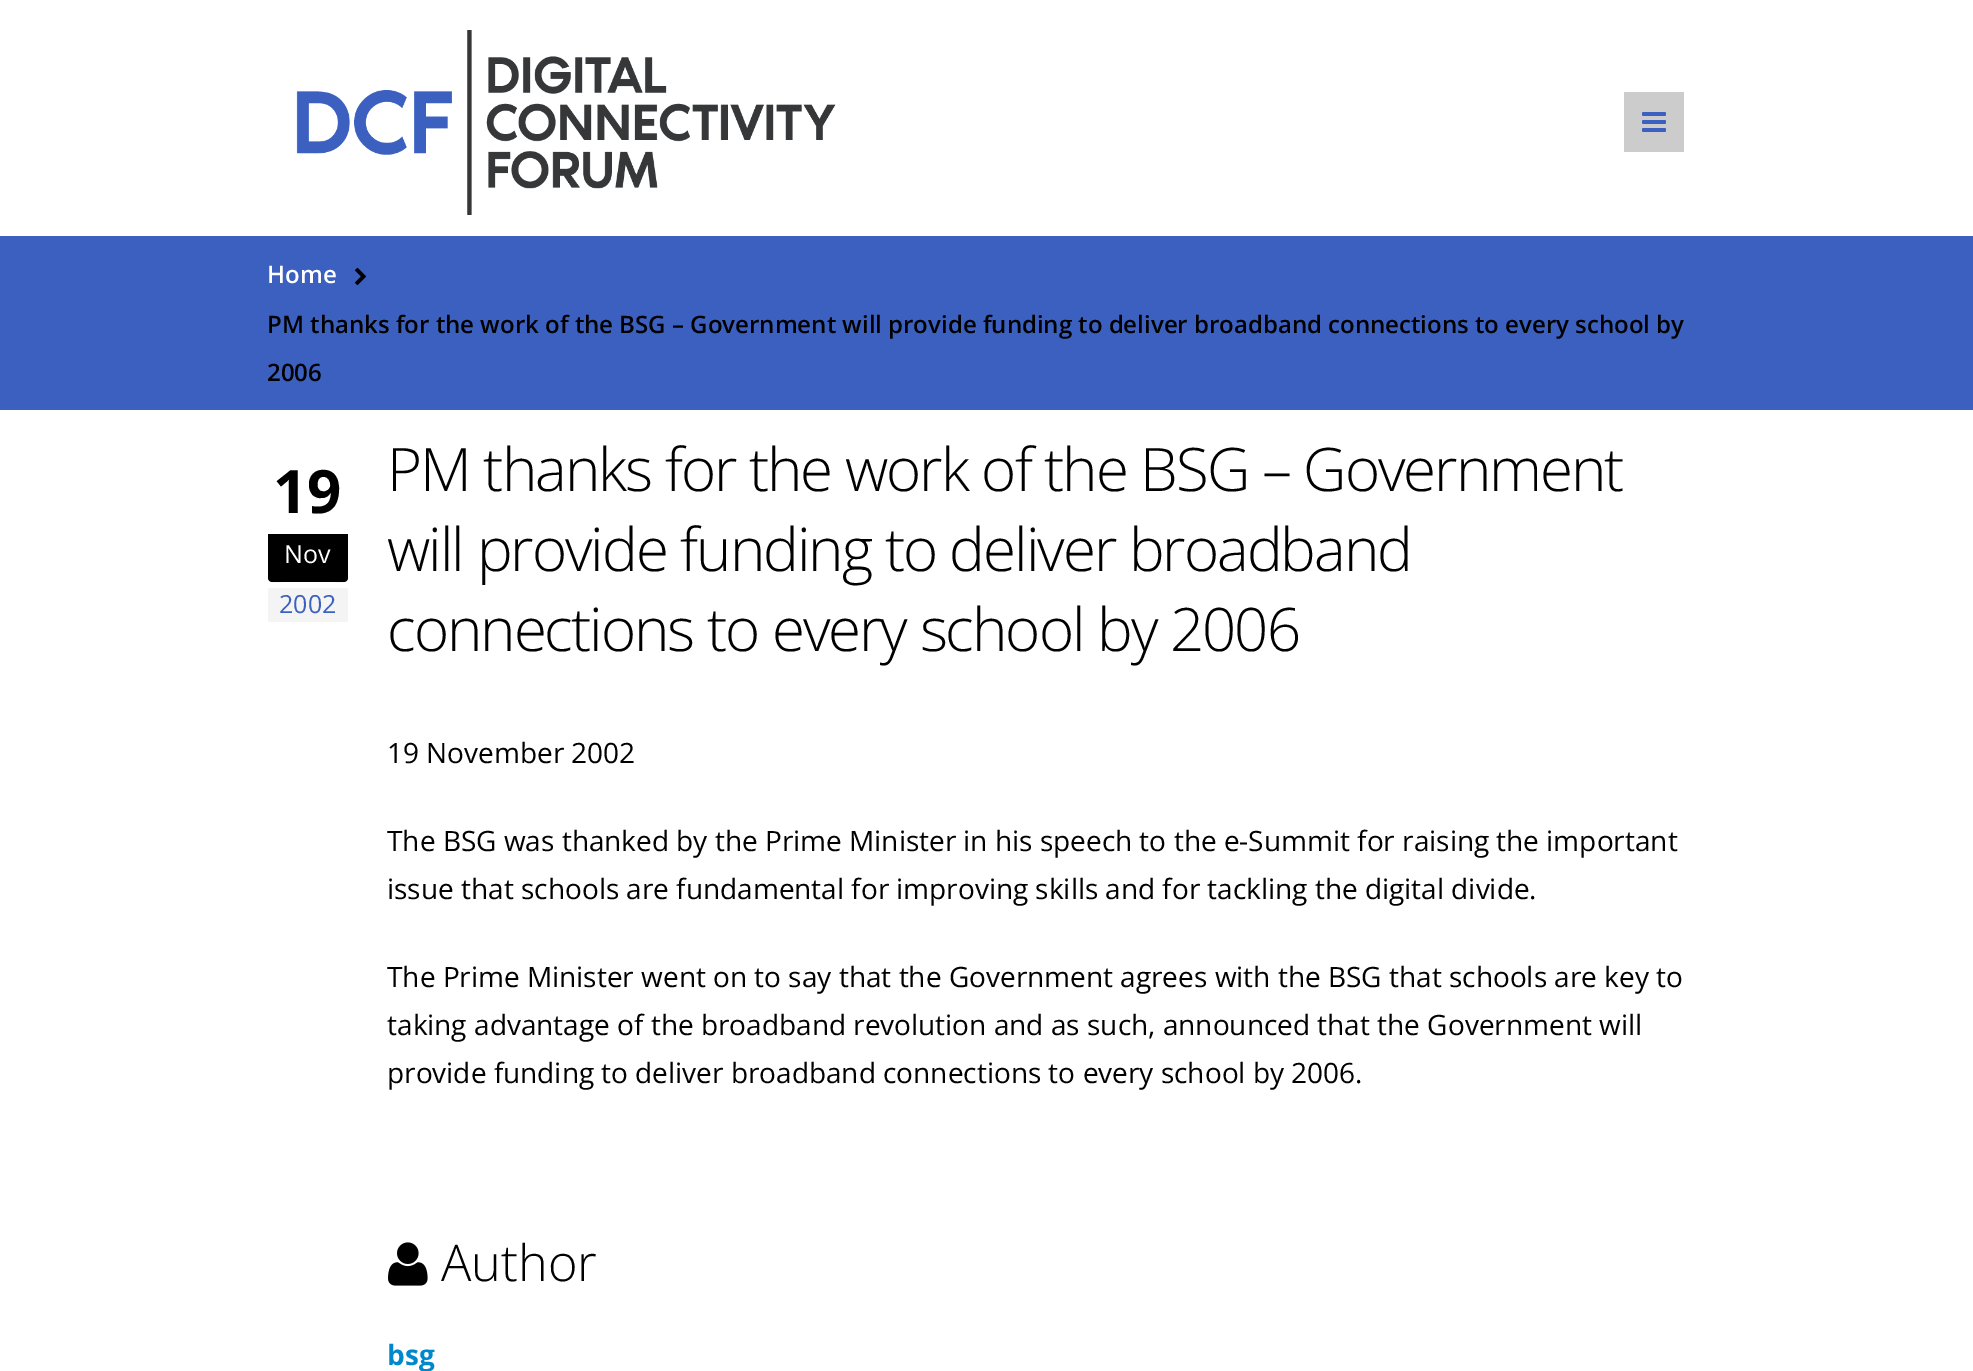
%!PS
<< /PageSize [1973 1371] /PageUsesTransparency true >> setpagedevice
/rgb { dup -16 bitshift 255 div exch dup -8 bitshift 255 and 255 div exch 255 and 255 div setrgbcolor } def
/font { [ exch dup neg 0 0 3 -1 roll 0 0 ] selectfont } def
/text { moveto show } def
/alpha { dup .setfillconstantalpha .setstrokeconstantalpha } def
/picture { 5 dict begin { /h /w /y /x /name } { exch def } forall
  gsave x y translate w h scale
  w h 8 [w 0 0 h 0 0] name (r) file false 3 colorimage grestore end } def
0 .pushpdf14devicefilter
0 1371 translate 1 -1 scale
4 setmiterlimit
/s1 { /OpenSans-SemiBold 24 font 16#FFFFFF rgb } def
/s2 { /OpenSans-SemiBold 24 font 16#000000 rgb } def
/s3 { /OpenSans-Bold 60 font 16#000000 rgb } def
/s4 { /OpenSans-Regular 25 font 16#FFFFFF rgb } def
/s5 { /OpenSans-Regular 25 font 16#3B60BF rgb } def
/s6 { /OpenSans-Regular 28 font 16#000000 rgb } def
/s7 { /OpenSans-Light 50.5 font 16#000000 rgb } def
/s8 { /OpenSans-Bold 28 font 16#0088CC rgb } def
16#FFFFFF rgb
0 0 1973 1371 rectfill
(pic1.raw) 296 30 540 185 picture
16#CCCCCC rgb
1624 92 60 60 rectfill
(pic2.raw) 1642 112 24 20 picture
16#3B60BF rgb
0 236 1973 174 rectfill
s1
(Home) 267 283 text
(pic3.raw) 355 267 11 18 picture
s2
(PM thanks for the work of the BSG – Government will provide funding to deliver broadband connections to every school by) 267 333 text
(2006) 267 381 text
s3
(19) 273 513 text
268 534 moveto 348 534 lineto 348 578 lineto 348 580 346 582 344 582 curveto 272 582 lineto 270 582 268 580 268 578 curveto closepath fill
0.07 alpha
268 576 moveto 268 585 276 582 284 582 curveto 332 582 lineto 340 582 348 585 348 576 curveto 348 578 346 580 344 580 curveto 272 580 lineto 270 580 268 578 268 576 curveto closepath fill
1 alpha
s4
(Nov) 284 563 text
16#F4F4F4 rgb
268 588 80 34 rectfill
s5
(2002) 279 613 text
/OpenSans-Light 60 font
16#000000 rgb
387 491 moveto -2 0 (PM thanks for the work of the BSG – Government) ashow
387 571 moveto -2 0 (will provide funding to deliver broadband) ashow
387 651 moveto -2 0 (connections to every school by 2006) ashow
s6
(19 November 2002) 387 763 text
(The BSG was thanked by the Prime Minister in his speech to the e-Summit for raising the important) 387 851 text
(issue that schools are fundamental for improving skills and for tackling the digital divide.) 387 899 text
(The Prime Minister went on to say that the Government agrees with the BSG that schools are key to) 387 987 text
(taking advantage of the broadband revolution and as such, announced that the Government will) 387 1035 text
(provide funding to deliver broadband connections to every school by 2006.) 387 1083 text
(pic4.raw) 388 1242 40 44 picture
s7
(Author) 441 1281 text
s8
(bsg) 387 1365 text
.poppdf14devicefilter showpage
